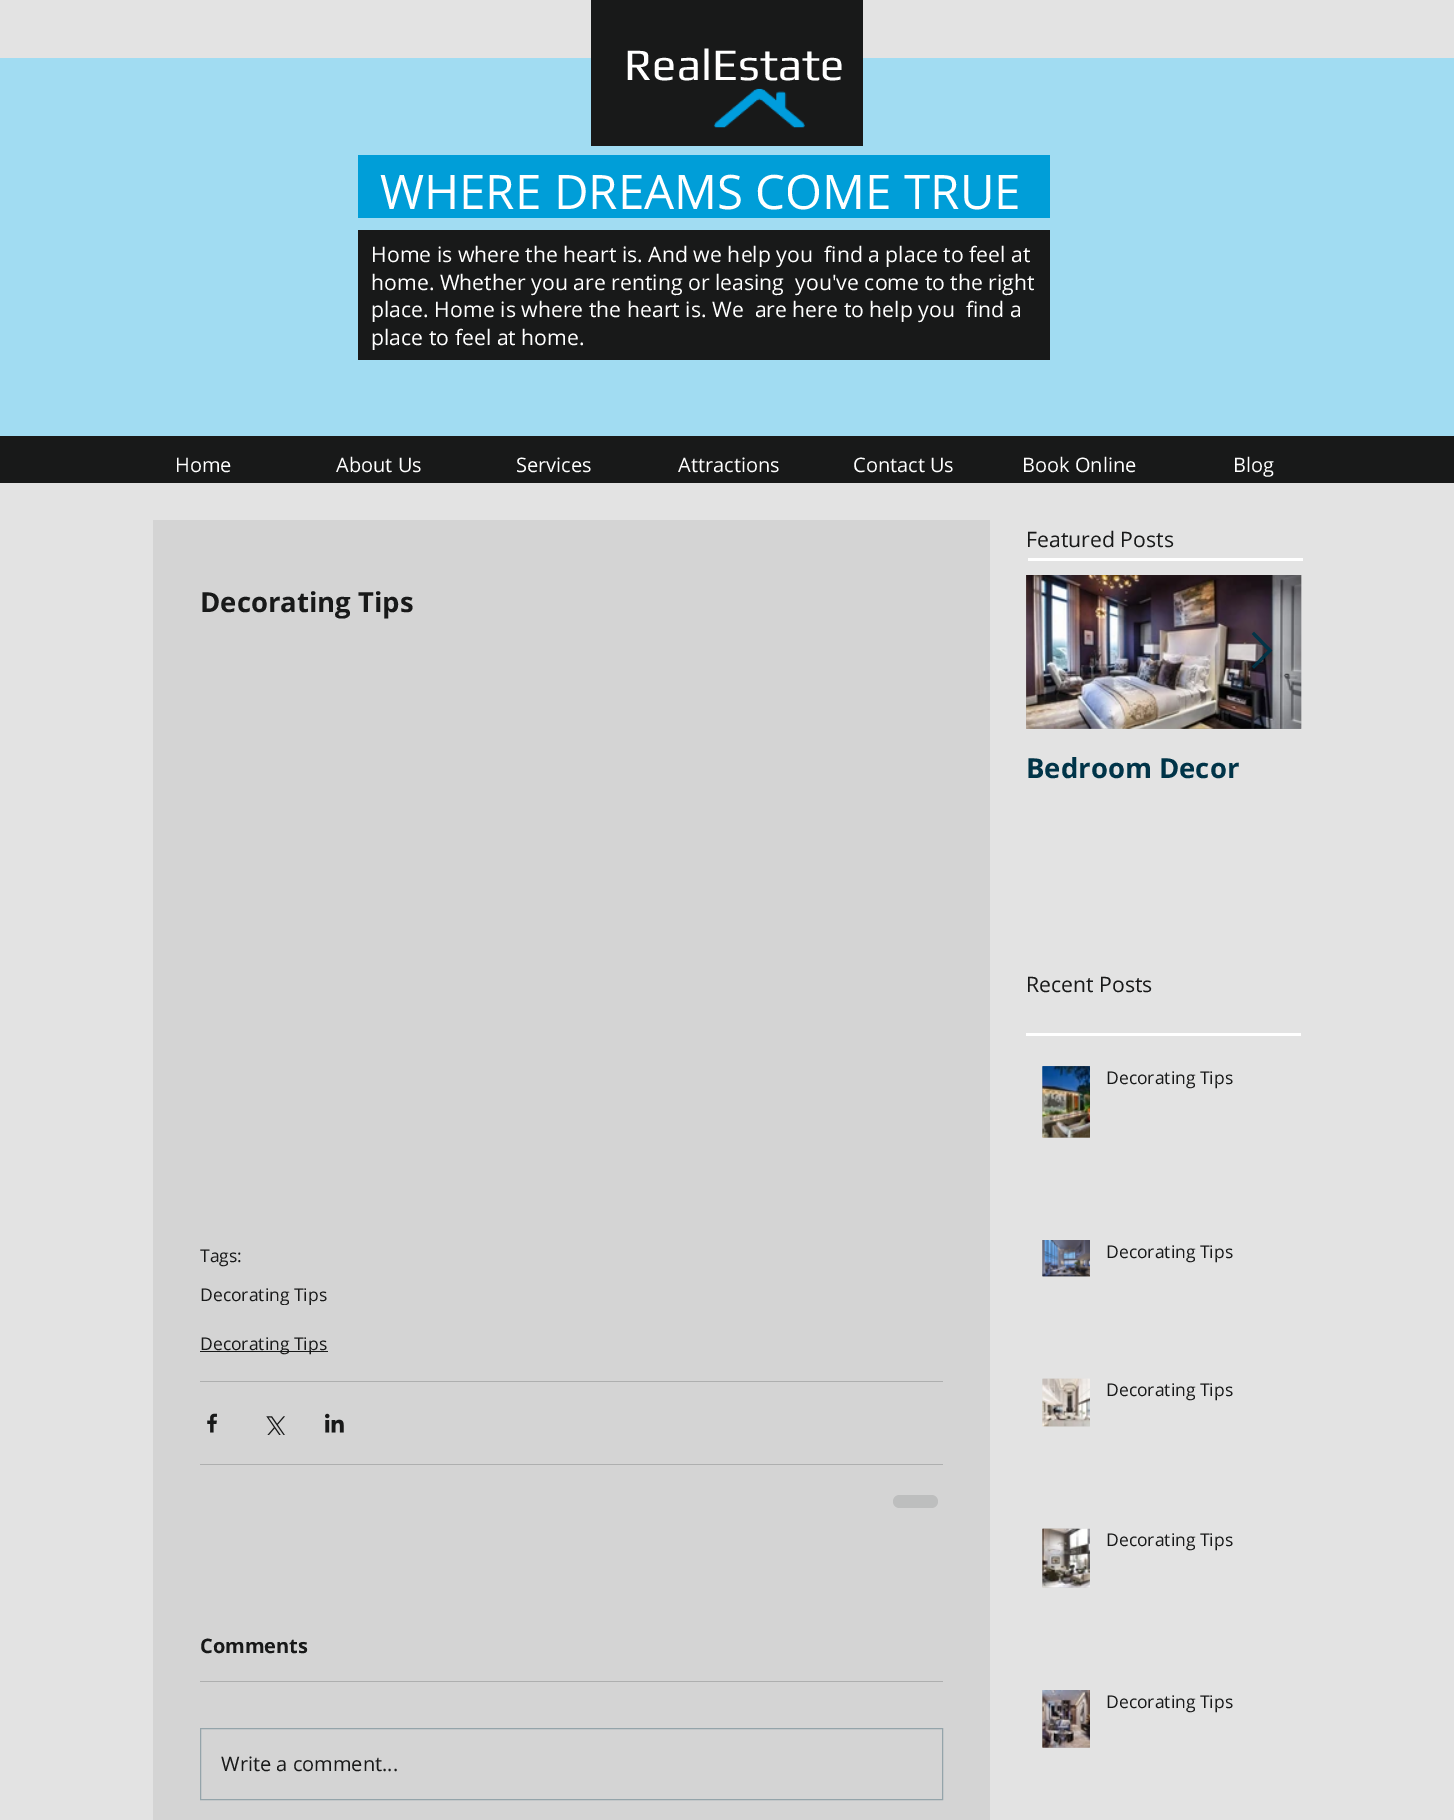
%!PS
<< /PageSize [1454 1820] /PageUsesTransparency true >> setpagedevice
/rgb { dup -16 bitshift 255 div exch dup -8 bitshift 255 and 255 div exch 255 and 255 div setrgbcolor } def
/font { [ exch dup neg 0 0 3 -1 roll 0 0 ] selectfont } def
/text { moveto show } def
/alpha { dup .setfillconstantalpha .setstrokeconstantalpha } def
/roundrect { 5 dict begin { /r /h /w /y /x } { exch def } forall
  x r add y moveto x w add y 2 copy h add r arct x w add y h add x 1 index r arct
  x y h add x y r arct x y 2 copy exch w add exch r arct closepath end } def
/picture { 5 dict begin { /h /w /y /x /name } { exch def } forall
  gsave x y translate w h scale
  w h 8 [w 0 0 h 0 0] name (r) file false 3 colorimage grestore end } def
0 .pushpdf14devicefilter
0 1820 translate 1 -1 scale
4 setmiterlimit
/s1 { /Play-Regular 45 font 16#FFFFFF rgb } def
/s2 { /OpenSans-Regular 47.5 font 16#FFFFFF rgb } def
/s3 { /OpenSans-Regular 21.25 font 16#FFFFFF rgb } def
/s4 { /OpenSans-Regular 20 font 16#FFFFFF rgb } def
/s5 { /OpenSans-Regular 21.25 font 16#181919 rgb } def
/s6 { /OpenSans-Bold 27.5 font 16#181919 rgb } def
/s7 { /OpenSans-Regular 17.5 font 16#181919 rgb } def
/s8 { /OpenSans-Bold 20 font 16#181919 rgb } def
/s9 { /OpenSans-Regular 20 font 16#181919 rgb } def
/s10 { /OpenSans-Bold 27.5 font 16#003448 rgb } def
16#E3E3E3 rgb
0 0 1454 1820 rectfill
16#A1DCF2 rgb
0 58 1454 378 rectfill
16#181919 rgb
591 0 272 146 rectfill
s1
(RealEstate) 624 80 text
(pic1.raw) 713 88 92 40 picture
16#009ED8 rgb
358 155 692 63 rectfill
s2
(WHERE DREAMS COME TRUE) 380 209 text
16#181919 rgb
358 230 692 130 rectfill
s3
(Home is where the heart is. And we help you  find a place to feel at) 371 262 text
(home. Whether you are renting or leasing  you've come to the right) 371 290 text
(place. Home is where the heart is. We  are here to help you  find a) 371 317 text
(place to feel at home.) 371 345 text
16#181919 rgb
0 436 1454 47 rectfill
s4
(Home) 175 472 text
(About Us) 336 472 text
(Services) 516 472 text
(Attractions) 678 472 text
(Contact Us) 853 472 text
(Book Online) 1022 472 text
(Blog) 1233 472 text
s5
(Featured Posts) 1026 547 text
16#FFFFFF rgb
1028 558 275 3 rectfill
16#D4D4D4 rgb
153 520 837 1300 rectfill
s6
(Decorating Tips) 200 612 text
s7
(Tags:) 200 1262 text
gsave
200 1284 128 21 rectclip
(Decorating Tips) 200 1301 text
grestore
200 1351 128 1 rectfill
(Decorating Tips) 200 1350 text
16#AEAFAF rgb
200 1381 743 1 rectfill
(pic2.raw) 207 1413 10 20 picture
(pic3.raw) 266 1416 19 19 picture
(pic4.raw) 325 1413 19 20 picture
200 1464 743 1 rectfill
16#BDBEBE rgb
893 1495 45 13 6.5 roundrect fill
s8
(Comments) 200 1653 text
16#AEAFAF rgb
200 1681 743 1 rectfill
16#94A4AA rgb
200.5 1728.5 742 71 rectstroke
s9
(Write a comment...) 221 1771 text
(pic5.raw) 1026 575 276 154 picture
(pic6.raw) 1026 575 276 154 picture
0.9 alpha
16#003448 rgb
1252.5 634 moveto 1254 632.5 lineto 1271.5 650.5 lineto 1254 668 lineto 1252.5 666.5 lineto 1268.5 650.5 lineto closepath gsave fill grestore
stroke
1 alpha
s10
(Bedroom Decor) 1026 778 text
s5
(Recent Posts) 1026 992 text
16#FFFFFF rgb
1026 1033 275 3 rectfill
(pic7.raw) 1042 1066 48 72 picture
(pic8.raw) 1042 1066 48 72 picture
s7
(Decorating Tips) 1106 1084 text
(pic9.raw) 1042 1240 48 37 picture
(pic10.raw) 1042 1240 48 37 picture
(Decorating Tips) 1106 1258 text
(pic11.raw) 1042 1378 48 49 picture
(pic12.raw) 1042 1378 48 49 picture
(Decorating Tips) 1106 1396 text
(pic13.raw) 1042 1528 48 60 picture
(pic14.raw) 1042 1528 48 60 picture
(Decorating Tips) 1106 1546 text
(pic15.raw) 1042 1690 48 58 picture
(pic16.raw) 1042 1690 48 58 picture
(Decorating Tips) 1106 1708 text
.poppdf14devicefilter showpage
